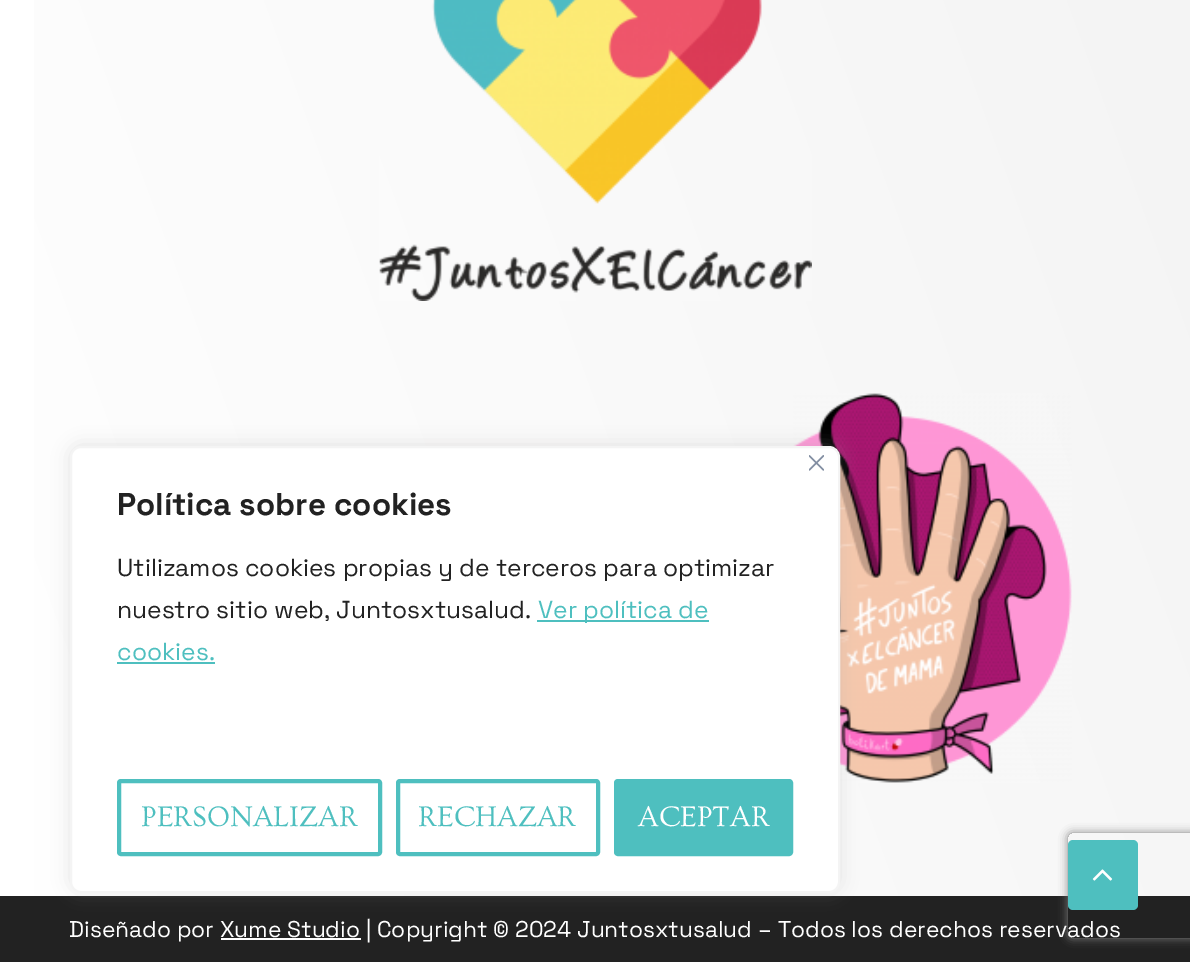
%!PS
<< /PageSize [1190 962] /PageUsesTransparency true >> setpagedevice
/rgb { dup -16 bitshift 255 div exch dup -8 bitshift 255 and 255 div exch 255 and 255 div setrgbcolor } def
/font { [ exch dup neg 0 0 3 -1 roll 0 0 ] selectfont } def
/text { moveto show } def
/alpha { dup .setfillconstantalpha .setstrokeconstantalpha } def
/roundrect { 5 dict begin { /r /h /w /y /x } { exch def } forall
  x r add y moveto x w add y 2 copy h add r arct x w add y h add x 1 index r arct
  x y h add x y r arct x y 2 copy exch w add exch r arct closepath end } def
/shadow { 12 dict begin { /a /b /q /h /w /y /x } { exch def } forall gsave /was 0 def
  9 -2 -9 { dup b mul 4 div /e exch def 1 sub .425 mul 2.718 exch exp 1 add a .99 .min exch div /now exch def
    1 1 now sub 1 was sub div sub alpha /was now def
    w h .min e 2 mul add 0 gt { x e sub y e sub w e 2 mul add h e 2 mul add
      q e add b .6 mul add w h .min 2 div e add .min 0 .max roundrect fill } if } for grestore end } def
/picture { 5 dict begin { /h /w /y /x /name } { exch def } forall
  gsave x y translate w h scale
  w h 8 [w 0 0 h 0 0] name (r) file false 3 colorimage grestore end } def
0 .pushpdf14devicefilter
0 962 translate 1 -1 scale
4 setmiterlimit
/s1 { /SpaceGrotesk-Bold 31.5 font 16#222222 rgb } def
/s2 { /SpaceGrotesk-Regular 24.5 font 16#222222 rgb } def
/s3 { /SpaceGrotesk-Regular 24.5 font 16#4EBFBF rgb } def
/s4 { /Ovo-Regular 29.75 font 16#4EBFBF rgb } def
/s5 { /Ovo-Regular 29.75 font 16#FFFFFF rgb } def
/s6 { /SpaceGrotesk-Regular 22.75 font 16#FFFFFF rgb } def
16#FFFFFF rgb
0 0 1190 962 rectfill
gsave 34 0 moveto 1190 0 lineto 1190 896 lineto 34 896 lineto closepath clip newpath
<< /ShadingType 2 /ColorSpace /DeviceRGB /Coords [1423 -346 -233 257] /Extend [true true] /Function << /FunctionType 2 /Domain [0 1] /C0 [0.949 0.949 0.949] /C1 [1 1 1] /N 1 >> >> shfill grestore
(pic4.raw) 793 393 279 390 picture
16#222222 rgb
0 896 1190 66 rectfill
16#ACABAB rgb
70 445 770 446 11 9 0.3 shadow
16#FFFFFF rgb
71 447 768 445 10 roundrect gsave fill grestore
16#F4F4F4 rgb
2 setlinewidth
stroke
(pic1.raw) 809 455 15 16 picture
s1
(Política sobre cookies) 117 515 text
s2
(Utilizamos cookies propias y de terceros para optimizar) 117 576 text
(nuestro sitio web, Juntosxtusalud.) 117 618 text
16#4EBFBF rgb
537 620 172 2 rectfill
(Ver política de) 538 618 text
(cookies.) 117 660 text
117 662 98 2 rectfill
4 setlinewidth
119 781 261 73 2 roundrect stroke
s4
(PERSONALIZAR) 141 826 text
398 781 200 73 2 roundrect stroke
(RECHAZAR) 418 826 text
616 781 175 73 2 roundrect gsave fill grestore
stroke
s5
(ACEPTAR) 638 826 text
gsave
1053 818 moveto 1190 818 lineto 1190 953 lineto 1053 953 lineto closepath 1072 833 moveto 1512 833 lineto 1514 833 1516 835 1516 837 curveto 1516 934 lineto 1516 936 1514 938 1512 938 curveto 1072 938 lineto 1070 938 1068 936 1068 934 curveto 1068 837 lineto 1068 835 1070 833 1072 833 curveto closepath eoclip newpath
16#808080 rgb
1068 833 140 105 4 4.5 1 shadow
grestore
16#4EBFBF rgb
1068 840 70 70 5 roundrect fill
(pic2.raw) 1092 869 21 12 picture
(pic3.raw) 379 0 433 301 picture
s6
(Diseñado por Xume Studio | Copyright © 2024 Juntosxtusalud – Todos los derechos reservados) 69 937 text
221 938 140 2 rectfill
.poppdf14devicefilter showpage
